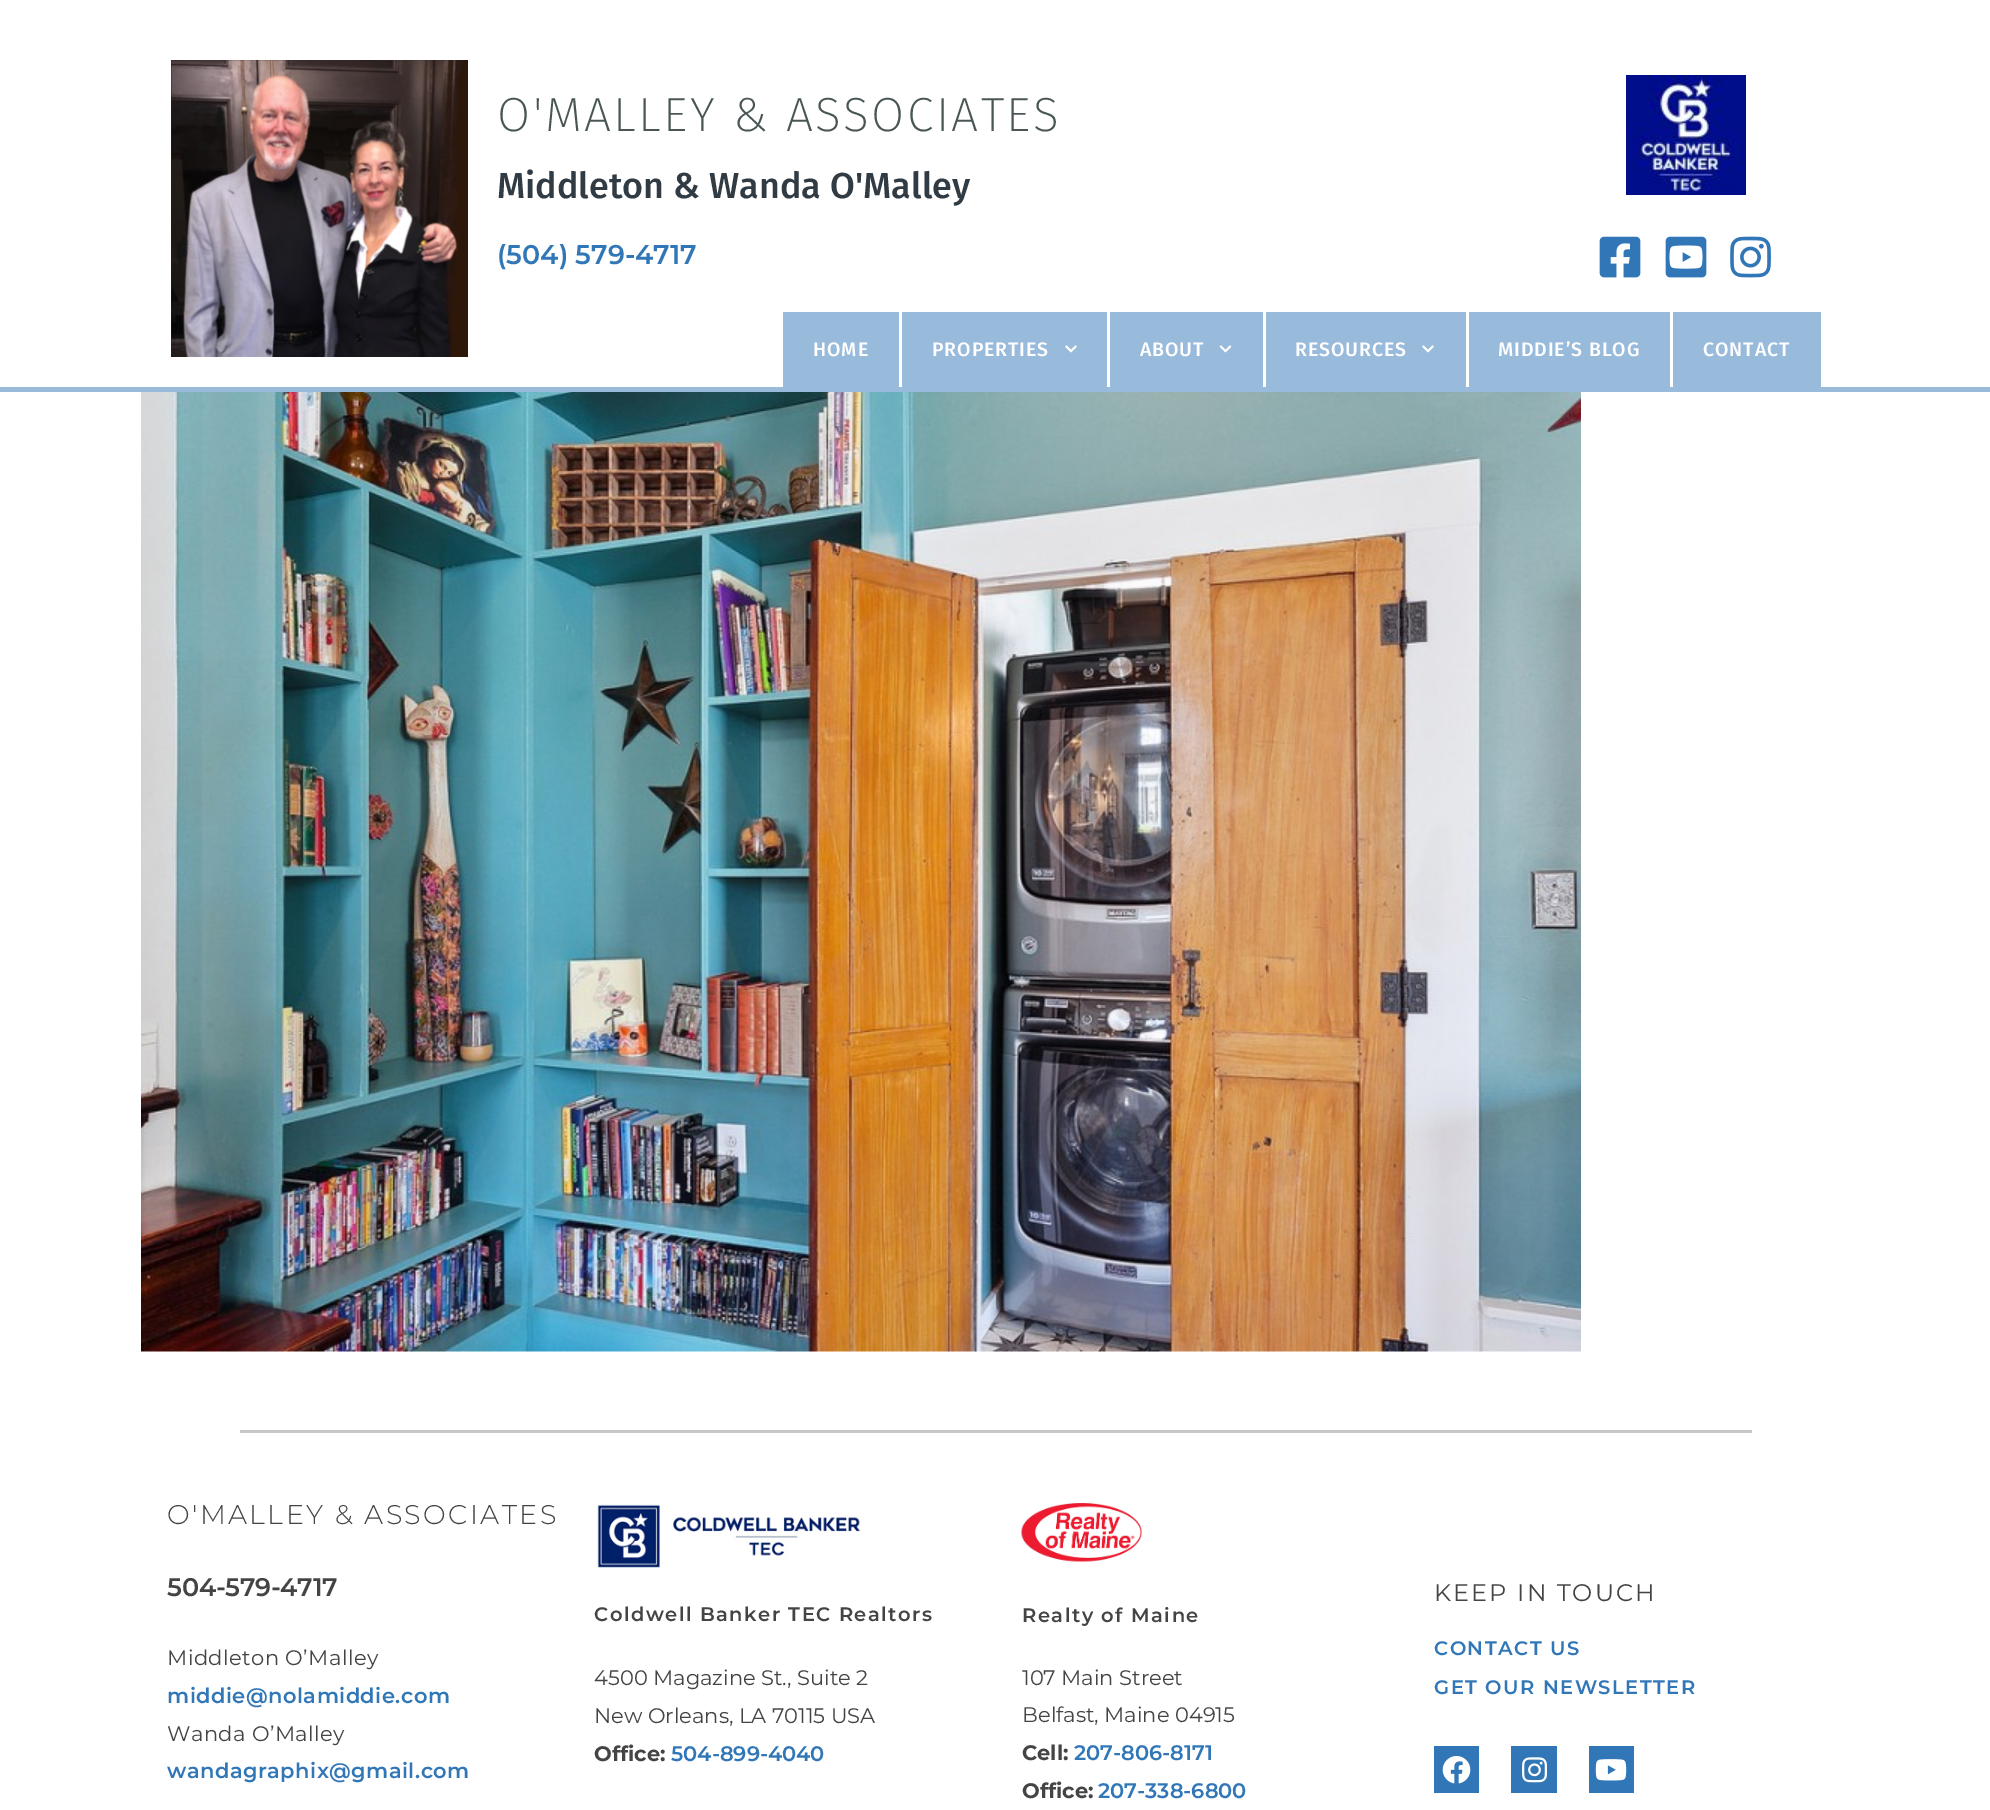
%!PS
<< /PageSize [1990 1810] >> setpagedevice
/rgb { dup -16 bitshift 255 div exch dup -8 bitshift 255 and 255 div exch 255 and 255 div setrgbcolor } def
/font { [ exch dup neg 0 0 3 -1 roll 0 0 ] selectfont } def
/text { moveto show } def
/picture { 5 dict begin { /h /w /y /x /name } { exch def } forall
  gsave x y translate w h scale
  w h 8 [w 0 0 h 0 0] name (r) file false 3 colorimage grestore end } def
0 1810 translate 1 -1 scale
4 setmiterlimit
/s1 { /FiraSans-Medium 36 font 16#313B44 rgb } def
/s2 { /Montserrat-SemiBold 27 font 16#3177B7 rgb } def
/s3 { /Montserrat-Regular 21 font 16#444444 rgb } def
/s4 { /Montserrat-Bold 21 font 16#444444 rgb } def
/s5 { /Montserrat-SemiBold 21 font 16#3177B7 rgb } def
16#FFFFFF rgb
0 0 1990 1810 rectfill
16#98BADB rgb
0 387 1990 5 rectfill
(pic1.raw) 171 60 297 297 picture
/FiraSans-ExtraLight 48 font
16#495655 rgb
497 131 moveto 2.4 0 (O'MALLEY & ASSOCIATES) ashow
s1
(Middleton & Wanda O'Malley) 497 198 text
s2
(\(504\) 579-4717) 497 264 text
(pic2.raw) 1626 75 120 120 picture
(pic3.raw) 1599 236 42 42 picture
(pic4.raw) 1665 236 42 42 picture
(pic5.raw) 1730 236 41 42 picture
16#98BADB rgb
783 312 116 75 rectfill
/FiraSans-Medium 19.5 font
16#FFFFFF rgb
813 356 moveto 0.9 0 (HOME) ashow
16#98BADB rgb
902 312 205 75 rectfill
16#FFFFFF rgb
932 356 moveto 0.9 0 (PROPERTIES) ashow
(pic6.raw) 1065 345 12 8 picture
16#98BADB rgb
1110 312 153 75 rectfill
16#FFFFFF rgb
1140 356 moveto 0.9 0 (ABOUT) ashow
(pic7.raw) 1219 345 13 8 picture
16#98BADB rgb
1266 312 200 75 rectfill
16#FFFFFF rgb
1295 356 moveto 0.9 0 (RESOURCES) ashow
(pic6.raw) 1422 345 12 8 picture
16#98BADB rgb
1469 312 201 75 rectfill
16#FFFFFF rgb
1498 356 moveto 0.9 0 (MIDDIE’S BLOG) ashow
16#98BADB rgb
1673 312 148 75 rectfill
16#FFFFFF rgb
1703 356 moveto 0.9 0 (CONTACT) ashow
(pic8.raw) 141 392 1440 960 picture
16#C8C8C8 rgb
240 1430 1512 3 rectfill
/Montserrat-Light 27 font
16#444444 rgb
167 1524 moveto 2.4 0 (O'MALLEY & ASSOCIATES) ashow
/Montserrat-SemiBold 25.5 font
167 1596 moveto -0.25 0 (504-579-4717) ashow
/Montserrat-Regular 21 font
167 1665 moveto 0.45 0 (Middleton O’Malley) ashow
/Montserrat-SemiBold 21 font
16#3177B7 rgb
167 1703 moveto 0.45 0 (middie@nolamiddie.com) ashow
/Montserrat-Regular 21 font
16#444444 rgb
167 1741 moveto 0.45 0 (Wanda O’Malley) ashow
/Montserrat-SemiBold 21 font
16#3177B7 rgb
167 1778 moveto 0.45 0 (wandagraphix@gmail.com) ashow
(pic9.raw) 597 1504 264 64 picture
/Montserrat-SemiBold 19.5 font
16#444444 rgb
594 1621 moveto 1.5 0 (Coldwell Banker TEC Realtors) ashow
s3
(4500 Magazine St., Suite 2) 594 1685 text
(New Orleans, LA 70115 USA) 594 1723 text
s4
(Office:) 594 1761 text
s5
(504-899-4040) 671 1761 text
(pic10.raw) 1021 1503 121 59 picture
/Montserrat-SemiBold 19.5 font
16#444444 rgb
1022 1622 moveto 1.5 0 (Realty of Maine) ashow
s3
(107 Main Street) 1022 1685 text
(Belfast, Maine 04915) 1022 1722 text
s4
(Cell:) 1022 1760 text
s5
(207-806-8171) 1074 1760 text
s4
(Office:) 1022 1798 text
s5
(207-338-6800) 1098 1798 text
/Montserrat-Regular 24 font
16#444444 rgb
1434 1601 moveto 2.1 0 (KEEP IN TOUCH) ashow
/Montserrat-SemiBold 19.5 font
16#3177B7 rgb
1434 1655 moveto 1.5 0 (CONTACT US) ashow
1434 1694 moveto 1.5 0 (GET OUR NEWSLETTER) ashow
1434 1746 45 47 rectfill
(pic11.raw) 1442 1756 29 28 picture
1511 1746 46 47 rectfill
(pic12.raw) 1522 1757 25 26 picture
1589 1746 45 47 rectfill
(pic13.raw) 1595 1759 32 22 picture
showpage
